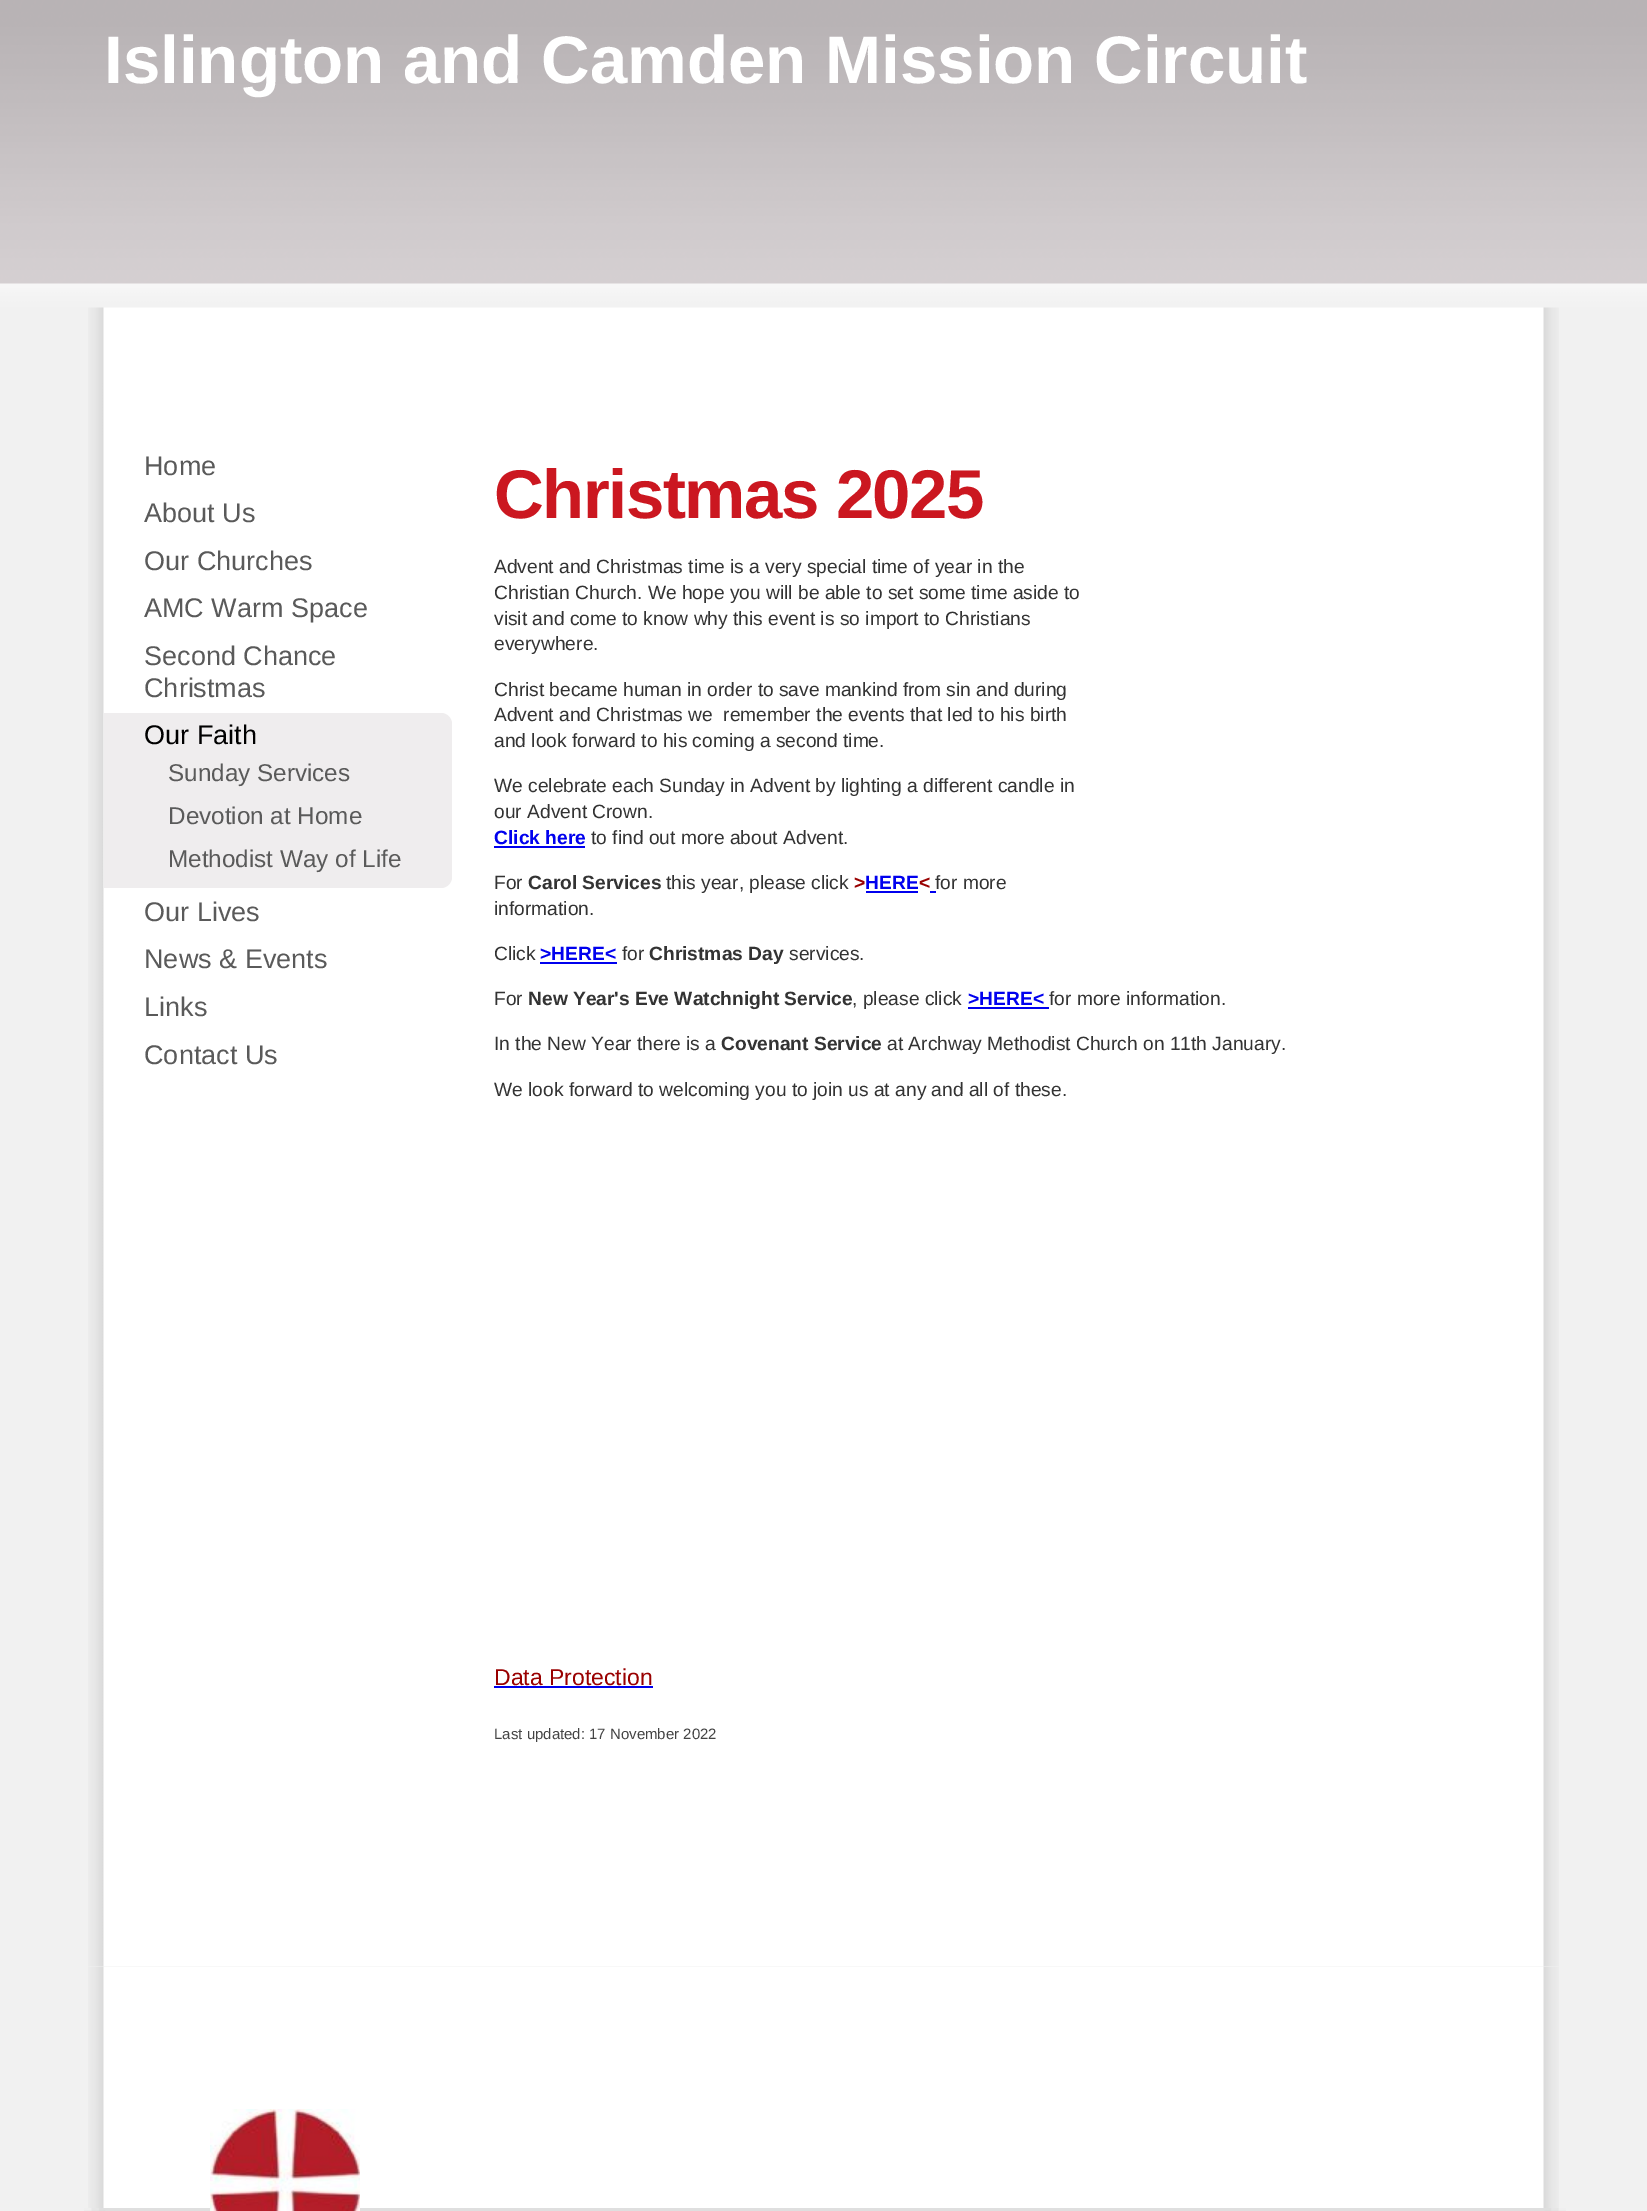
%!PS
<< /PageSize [1647 2211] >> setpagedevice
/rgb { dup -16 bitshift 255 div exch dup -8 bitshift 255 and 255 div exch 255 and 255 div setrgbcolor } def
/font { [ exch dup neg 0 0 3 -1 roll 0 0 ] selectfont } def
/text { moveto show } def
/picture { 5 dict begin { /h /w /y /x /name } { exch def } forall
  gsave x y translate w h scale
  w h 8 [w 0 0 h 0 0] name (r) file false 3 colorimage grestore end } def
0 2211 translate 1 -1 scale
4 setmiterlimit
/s1 { /LiberationSans-Bold 67.25 font 16#FFFFFF rgb } def
/s2 { /LiberationSans-Regular 27 font 16#5A5A5A rgb } def
/s3 { /LiberationSans-Regular 27 font 16#000000 rgb } def
/s4 { /LiberationSans-Regular 24.25 font 16#5A5A5A rgb } def
/s5 { /LiberationSans-Regular 19.2 font 16#333333 rgb } def
/s6 { /LiberationSans-Bold 19.2 font 16#0000EE rgb } def
/s7 { /LiberationSans-Bold 19.2 font 16#333333 rgb } def
/s8 { /LiberationSans-Bold 19.2 font 16#990000 rgb } def
/s9 { /LiberationSans-Regular 23 font 16#990000 rgb } def
/s10 { /LiberationSans-Regular 15 font 16#444444 rgb } def
16#F1F1F1 rgb
0 0 1647 2211 rectfill
(pic1.raw) 88 307 1471 1901 picture
(pic2.raw) 0 0 1647 308 picture
s1
(Islington and Camden Mission Circuit) 104 83 text
16#F1F1F1 rgb
88 435 1471 1532 rectfill
(pic3.raw) 88 435 1471 1532 picture
s2
(Home) 144 475 text
(About Us) 144 522 text
(Our Churches) 144 570 text
(AMC Warm Space) 144 617 text
(Second Chance) 144 665 text
(Christmas) 144 697 text
16#EFEDEE rgb
104 713 moveto 441 713 lineto 447 713 452 718 452 724 curveto 452 877 lineto 452 883 447 888 441 888 curveto 104 888 lineto closepath fill
s3
(Our Faith) 144 744 text
s4
(Sunday Services) 168 781 text
(Devotion at Home) 168 824 text
(Methodist Way of Life) 168 867 text
s2
(Our Lives) 144 921 text
(News & Events) 144 968 text
(Links) 144 1016 text
(Contact Us) 144 1064 text
/LiberationSans-Bold 69 font
16#CB1720 rgb
494 518 moveto -1.5 0 (Christmas 2025) ashow
s5
(Advent and Christmas time is a very special time of year in the) 494 573 text
(Christian Church. We hope you will be able to set some time aside to) 494 599 text
(visit and come to know why this event is so import to Christians) 494 625 text
(everywhere.) 494 650 text
(Christ became human in order to save mankind from sin and during) 494 696 text
(Advent and Christmas we  remember the events that led to his birth) 494 721 text
(and look forward to his coming a second time.) 494 747 text
(We celebrate each Sunday in Advent by lighting a different candle in) 494 792 text
(our Advent Crown.) 494 818 text
s6
(Click here) 494 844 text
494 846 91 2 rectfill
s5
(to find out more about Advent.) 591 844 text
(For) 494 889 text
s7
(Carol Services) 528 889 text
s5
(this year, please click) 666 889 text
s8
(>) 854 889 text
16#0000EE rgb
866 891 52 2 rectfill
(HERE) 865 889 text
s8
(<) 919 889 text
16#0000EE rgb
930 891 6 2 rectfill
s5
(for more) 935 889 text
(information.) 494 915 text
(Click) 494 960 text
s6
(>HERE<) 540 960 text
540 962 77 2 rectfill
s5
(for) 622 960 text
s7
(Christmas Day) 649 960 text
s5
(services.) 789 960 text
(For) 494 1005 text
s7
(New Year's Eve Watchnight Service) 528 1005 text
s5
(, please click) 852 1005 text
s6
(>HERE<) 968 1005 text
968 1007 81 2 rectfill
s5
(for more information.) 1049 1005 text
(In the New Year there is a) 494 1050 text
s7
(Covenant Service) 721 1050 text
s5
(at Archway Methodist Church on 11th January.) 887 1050 text
(We look forward to welcoming you to join us at any and all of these.) 494 1096 text
s9
(Data Protection) 494 1685 text
16#0000EE rgb
494 1686 159 2 rectfill
s10
(Last updated: 17 November 2022) 494 1739 text
(pic4.raw) 84 2208 1482 3 picture
(pic5.raw) 210 2109 150 102 picture
showpage
